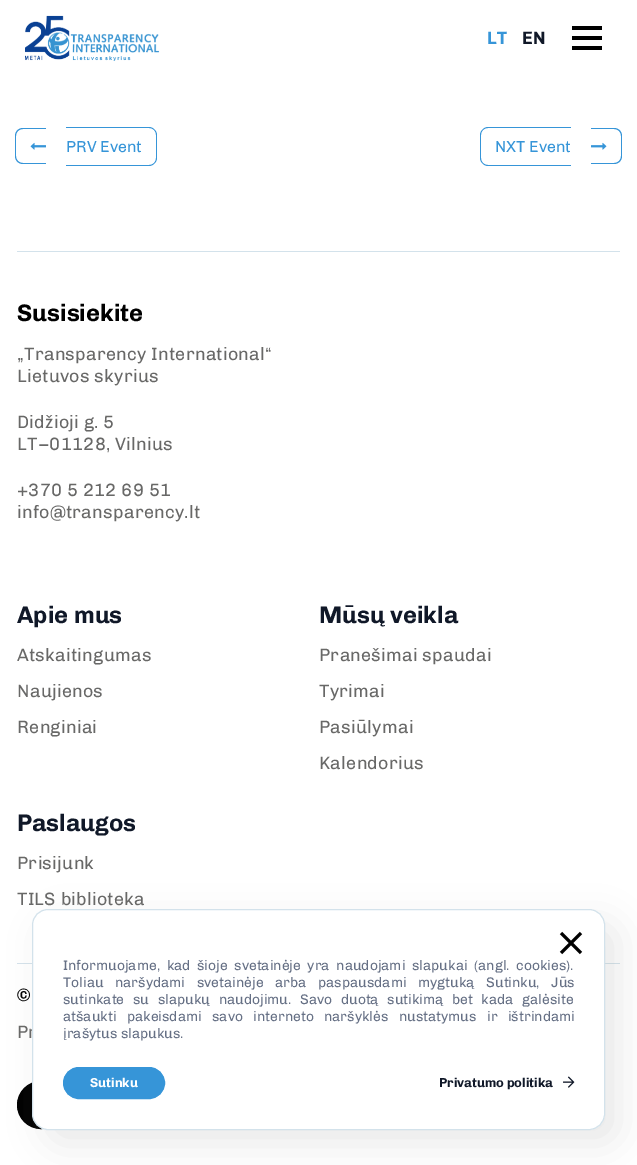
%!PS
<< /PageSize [637 1165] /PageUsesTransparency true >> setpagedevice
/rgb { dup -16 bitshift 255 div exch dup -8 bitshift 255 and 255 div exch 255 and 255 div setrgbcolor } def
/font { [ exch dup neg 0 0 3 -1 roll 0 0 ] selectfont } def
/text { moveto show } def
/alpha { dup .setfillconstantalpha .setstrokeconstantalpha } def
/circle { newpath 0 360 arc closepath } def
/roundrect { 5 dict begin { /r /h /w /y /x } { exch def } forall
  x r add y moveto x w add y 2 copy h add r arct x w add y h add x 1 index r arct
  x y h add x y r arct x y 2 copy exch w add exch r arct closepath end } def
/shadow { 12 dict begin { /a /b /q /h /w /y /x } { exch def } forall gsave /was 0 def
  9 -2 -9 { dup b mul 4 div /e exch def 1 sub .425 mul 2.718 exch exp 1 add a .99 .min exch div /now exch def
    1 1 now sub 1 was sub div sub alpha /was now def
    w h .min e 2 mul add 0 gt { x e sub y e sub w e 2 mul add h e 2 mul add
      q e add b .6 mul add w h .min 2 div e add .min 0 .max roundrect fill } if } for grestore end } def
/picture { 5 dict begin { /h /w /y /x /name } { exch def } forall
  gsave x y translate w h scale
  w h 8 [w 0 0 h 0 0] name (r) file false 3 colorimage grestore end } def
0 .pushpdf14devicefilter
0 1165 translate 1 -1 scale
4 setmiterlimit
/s1 { /Chivo-Bold 18 font 16#3695D8 rgb } def
/s2 { /Chivo-Bold 18 font 16#101828 rgb } def
/s3 { /Chivo-Regular 16 font 16#3695D8 rgb } def
/s4 { /Chivo-Bold 24 font 16#000000 rgb } def
/s5 { /Chivo-Bold 24 font 16#101828 rgb } def
/s6 { /Chivo-Bold 18 font 16#000000 rgb } def
/s7 { /Chivo-Regular 18 font 16#686867 rgb } def
/s8 { /Chivo-Regular 14 font 16#667085 rgb } def
/s9 { /Chivo-Bold 13 font 16#FFFFFF rgb } def
/s10 { /Chivo-Bold 13 font 16#101828 rgb } def
16#FFFFFF rgb
0 0 637 1165 rectfill
(pic1.raw) 25 15 135 46 picture
s1
(LT) 487 44 text
s2
(EN) 522 44 text
16#000000 rgb
572 26 30 4 rectfill
572 36 30 4 rectfill
572 46 30 4 rectfill
16#3695D8 rgb
23 128 moveto 46 128 lineto 46 164 lineto 23 164 lineto 18.5 164 15 160.5 15 156 curveto 15 136 lineto 15 131.5 18.5 128 23 128 curveto closepath 23 129 moveto 46 129 lineto 46 163 lineto 23 163 lineto 19 163 16 160 16 156 curveto 16 136 lineto 16 132 19 129 23 129 curveto closepath eofill
(pic2.raw) 30 142 16 8 picture
66 127 moveto 149 127 lineto 153 127 157 131 157 135 curveto 157 158 lineto 157 162 153 166 149 166 curveto 66 166 lineto closepath 66 128 moveto 149 128 lineto 153 128 156 131 156 135 curveto 156 158 lineto 156 162 153 165 149 165 curveto 66 165 lineto closepath eofill
s3
(PRV Event) 66 152 text
488 127 moveto 571 127 lineto 571 166 lineto 488 166 lineto 484 166 480 162 480 158 curveto 480 135 lineto 480 131 484 127 488 127 curveto closepath 488 128 moveto 571 128 lineto 571 165 lineto 488 165 lineto 484 165 481 162 481 158 curveto 481 135 lineto 481 131 484 128 488 128 curveto closepath eofill
(NXT Event) 495 152 text
591 128 moveto 614 128 lineto 618.5 128 622 131.5 622 136 curveto 622 156 lineto 622 160.5 618.5 164 614 164 curveto 591 164 lineto closepath 591 129 moveto 614 129 lineto 618 129 621 132 621 136 curveto 621 156 lineto 621 160 618 163 614 163 curveto 591 163 lineto closepath eofill
(pic3.raw) 591 142 16 8 picture
16#D3E2EB rgb
17 251 603 1 rectfill
s4
(Susisiekite) 17 321 text
/Chivo-Regular 18 font
16#686867 rgb
17 360 moveto 0.25 0 („Transparency International“) ashow
17 382 moveto 0.25 0 (Lietuvos skyrius) ashow
17 428 moveto 0.25 0 (Didžioji g. 5) ashow
17 450 moveto 0.25 0 (LT–01128, Vilnius) ashow
17 496 moveto 0.25 0 (+370 5 212 69 51) ashow
17 518 moveto 0.25 0 (info@transparency.lt) ashow
s5
(Apie mus) 17 623 text
/Chivo-Regular 18 font
16#686867 rgb
17 661 moveto 0.25 0 (Atskaitingumas) ashow
17 697 moveto 0.25 0 (Naujienos) ashow
17 733 moveto 0.25 0 (Renginiai) ashow
s5
(Mūsų veikla) 319 623 text
/Chivo-Regular 18 font
16#686867 rgb
319 661 moveto 0.25 0 (Pranešimai spaudai) ashow
319 697 moveto 0.25 0 (Tyrimai) ashow
319 733 moveto 0.25 0 (Pasiūlymai) ashow
319 769 moveto 0.25 0 (Kalendorius) ashow
s5
(Paslaugos) 17 831 text
/Chivo-Regular 18 font
16#686867 rgb
17 869 moveto 0.25 0 (Prisijunk) ashow
17 905 moveto 0.25 0 (TILS biblioteka) ashow
16#D3E2EB rgb
17 963 603 1 rectfill
s6
(©) 17 1001 text
s7
(Pr) 17 1038 text
16#000000 rgb
41 1105 23.5 circle gsave fill grestore
stroke
16#999999 rgb
46 923 573 221 16 18 0.22 shadow
16#FFFFFF rgb
32.5 909.5 572 220 15.5 roundrect gsave fill grestore
16#D3E2EB rgb
stroke
/Chivo-Regular 14 font
16#667085 rgb
63 970 moveto 3.25 0 32 (Informuojame, kad šioje svetainėje yra naudojami slapukai \(angl. cookies\).) widthshow
63 987 moveto 8.25 0 32 (Toliau naršydami svetainėje arba paspausdami mygtuką Sutinku, Jūs) widthshow
63 1004 moveto 5.25 0 32 (sutinkate su slapukų naudojimu. Savo duotą sutikimą bet kada galėsite) widthshow
63 1021 moveto 7 0 32 (atšaukti pakeisdami savo interneto naršyklės nustatymus ir ištrindami) widthshow
(įrašytus slapukus.) 63 1038 text
(pic4.raw) 559 931 24 24 picture
16#3695D8 rgb
63.5 1067.5 101 31 15.5 roundrect gsave fill grestore
stroke
s9
(Sutinku) 90 1087 text
s10
(Privatumo politika) 439 1087 text
(pic5.raw) 563 1076 12 12 picture
.poppdf14devicefilter showpage
